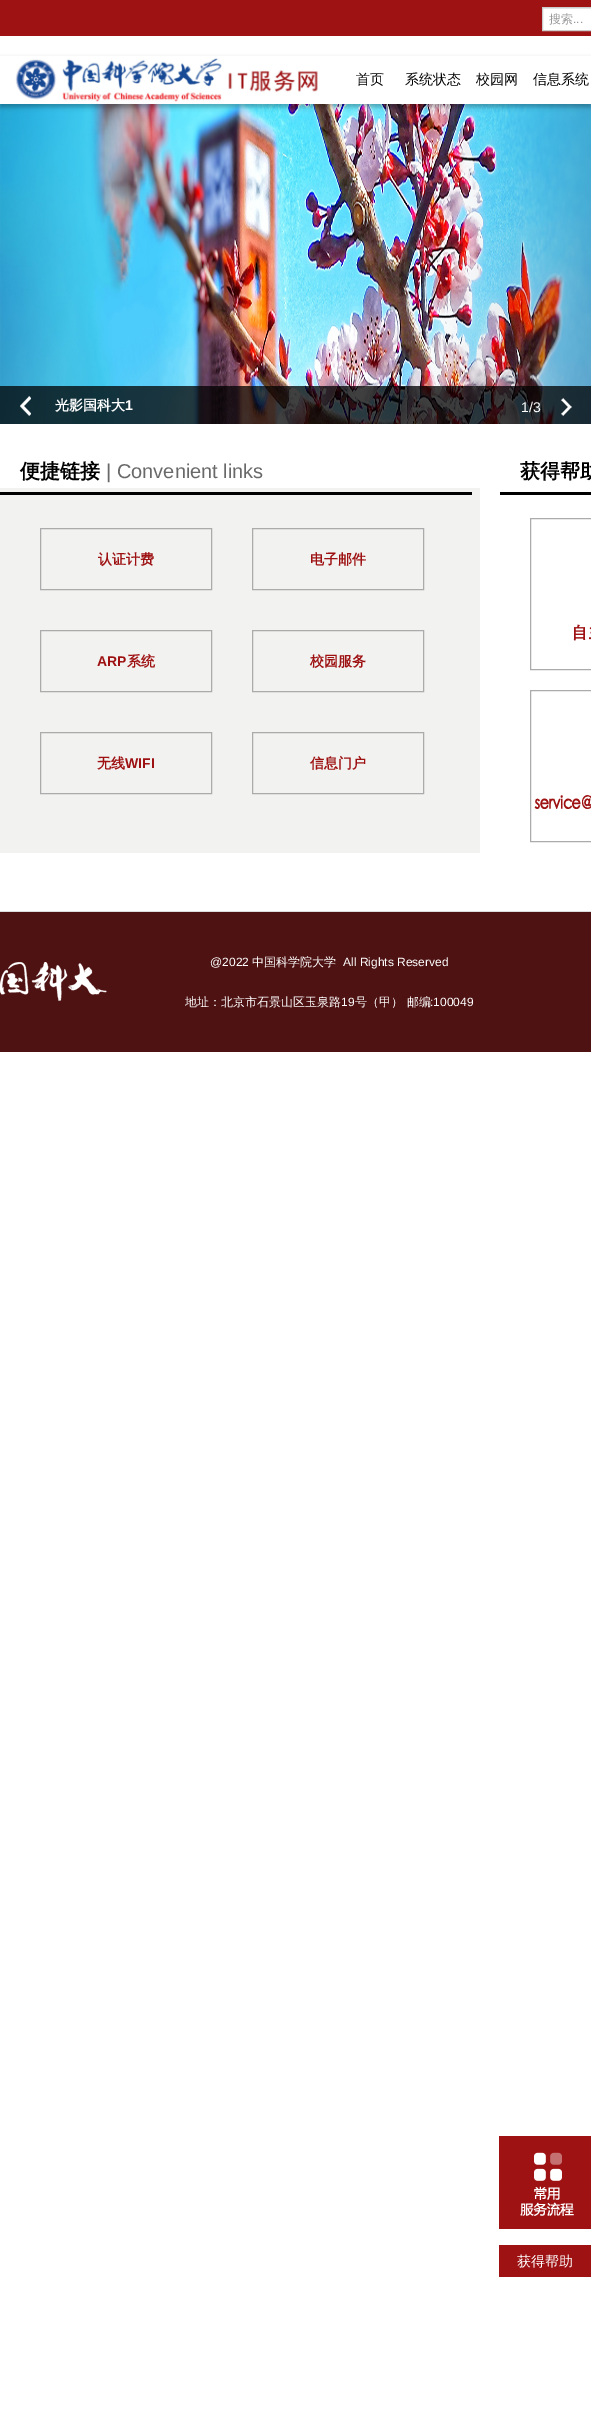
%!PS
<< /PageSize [591 2433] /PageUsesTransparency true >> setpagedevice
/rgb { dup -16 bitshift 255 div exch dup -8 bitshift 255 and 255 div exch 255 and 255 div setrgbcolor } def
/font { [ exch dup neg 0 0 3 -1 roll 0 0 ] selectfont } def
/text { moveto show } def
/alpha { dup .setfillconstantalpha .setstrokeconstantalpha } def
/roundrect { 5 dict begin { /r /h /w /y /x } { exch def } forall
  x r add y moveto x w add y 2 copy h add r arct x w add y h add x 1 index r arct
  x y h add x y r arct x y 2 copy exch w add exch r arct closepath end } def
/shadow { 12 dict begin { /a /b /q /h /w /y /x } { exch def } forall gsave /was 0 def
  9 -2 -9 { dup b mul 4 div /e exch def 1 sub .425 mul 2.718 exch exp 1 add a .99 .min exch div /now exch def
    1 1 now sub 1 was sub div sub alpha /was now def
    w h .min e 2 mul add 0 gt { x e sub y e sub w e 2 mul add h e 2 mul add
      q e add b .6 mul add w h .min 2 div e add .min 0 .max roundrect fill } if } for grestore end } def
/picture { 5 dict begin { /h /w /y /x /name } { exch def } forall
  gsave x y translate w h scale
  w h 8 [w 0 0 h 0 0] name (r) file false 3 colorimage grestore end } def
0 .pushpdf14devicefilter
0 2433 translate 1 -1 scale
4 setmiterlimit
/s1 { /WenQuanYiZenHei-Medium 12 font 16#999999 rgb } def
/s2 { /LiberationSans-Regular 12 font 16#999999 rgb } def
/s3 { /WenQuanYiZenHei-Medium 14 font 16#000000 rgb } def
/s4 { /WenQuanYiZenHei-Bold 14 font 16#FFFFFF rgb } def
/s5 { /LiberationSans-Bold 14 font 16#FFFFFF rgb } def
/s6 { /LiberationSans-Regular 14 font 16#FFFFFF rgb } def
/s7 { /WenQuanYiZenHei-Bold 20 font 16#000000 rgb } def
/s8 { /LiberationSans-Regular 20 font 16#696969 rgb } def
/s9 { /WenQuanYiZenHei-Bold 14 font 16#9E1112 rgb } def
/s10 { /LiberationSans-Bold 14 font 16#9E1112 rgb } def
/s11 { /LiberationSans-Regular 12 font 16#FFFFFF rgb } def
/s12 { /WenQuanYiZenHei-Medium 12 font 16#FFFFFF rgb } def
/s13 { /WenQuanYiZenHei-Medium 14 font 16#FFFFFF rgb } def
16#FFFFFF rgb
0 0 591 2433 rectfill
16#9E1213 rgb
0 0 591 36 rectfill
16#FFFFFF rgb
543 9 48 21 rectfill
16#ECECEC rgb
543 8 48 1 rectfill
16#CCCCCC rgb
542.5 7.5 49 23 rectstroke
s1
(搜索) 549 23 text
s2
(...) 573 23 text
(pic4.raw) 0 104 591 320 picture
gsave
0 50 moveto 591 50 lineto 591 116 lineto 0 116 lineto closepath 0 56 moveto 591 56 lineto 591 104 lineto 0 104 lineto closepath eoclip newpath
16#000000 rgb
0 59 591 48 0 2.5 0.3 shadow
grestore
(pic1.raw) 15 58 303 44 picture
s3
(首页) 356 84 text
(系统状态) 405 84 text
(校园网) 476 84 text
(信息系统) 533 84 text
0.75 alpha
0 386 591 38 rectfill
1 alpha
(pic2.raw) 20 396 11 20 picture
(pic3.raw) 561 398 11 18 picture
s4
(光影国科大) 55 410 text
s5
(1) 125 410 text
s6
(1/3) 521 412 text
16#F2F2F0 rgb
0 488 480 365 rectfill
16#000000 rgb
0 492 472 3 rectfill
s7
(便捷链接) 20 478 text
s8
(| Convenient links) 106 478 text
16#ABABAB rgb
40.5 528.5 171 61 rectstroke
s9
(认证计费) 98 564 text
16#ABABAB rgb
252.5 528.5 171 61 rectstroke
s9
(电子邮件) 310 564 text
16#ABABAB rgb
40.5 630.5 171 61 rectstroke
s10
(ARP) 97 666 text
s9
(系统) 127 666 text
16#ABABAB rgb
252.5 630.5 171 61 rectstroke
s9
(校园服务) 310 666 text
16#ABABAB rgb
40.5 732.5 171 61 rectstroke
s9
(无线) 97 768 text
s10
(WIFI) 125 768 text
16#ABABAB rgb
252.5 732.5 171 61 rectstroke
s9
(信息门户) 310 768 text
16#000000 rgb
500 492 91 3 rectfill
s7
(获得帮助) 520 478 text
16#ABABAB rgb
530.5 518.5 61 151 rectstroke
(pic5.raw) 573 624 18 17 picture
530.5 690.5 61 151 rectstroke
(pic6.raw) 534 795 57 14 picture
16#4E1212 rgb
0 912 591 140 rectfill
16#DDDDDD rgb
0 911 591 1 rectfill
(pic7.raw) 0 962 107 39 picture
s11
(@2022) 210 966 text
s12
(中国科学院大学) 252 966 text
s11
(All Rights Reserved) 343 966 text
s12
(地址：北京市石景山区玉泉路) 185 1006 text
s11
(19) 341 1006 text
s12
(号（甲） 邮编) 355 1006 text
s11
(:100049) 430 1006 text
16#9E1213 rgb
499 2136 92 93 rectfill
(pic8.raw) 520 2152 54 64 picture
499 2245 92 32 rectfill
s13
(获得帮助) 517 2266 text
.poppdf14devicefilter showpage
